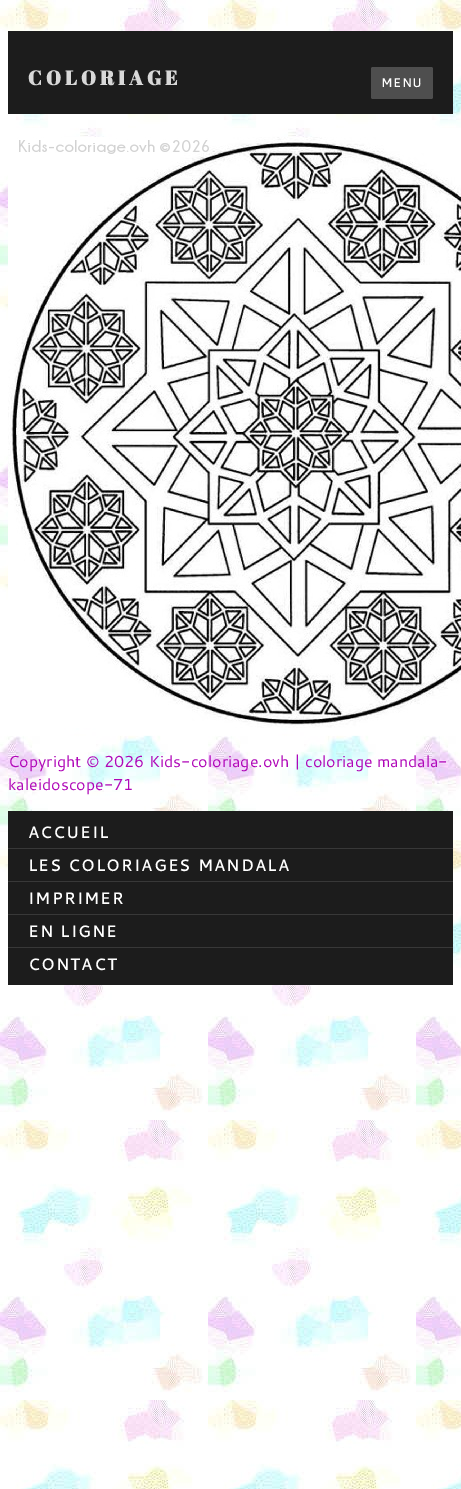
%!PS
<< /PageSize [461 1489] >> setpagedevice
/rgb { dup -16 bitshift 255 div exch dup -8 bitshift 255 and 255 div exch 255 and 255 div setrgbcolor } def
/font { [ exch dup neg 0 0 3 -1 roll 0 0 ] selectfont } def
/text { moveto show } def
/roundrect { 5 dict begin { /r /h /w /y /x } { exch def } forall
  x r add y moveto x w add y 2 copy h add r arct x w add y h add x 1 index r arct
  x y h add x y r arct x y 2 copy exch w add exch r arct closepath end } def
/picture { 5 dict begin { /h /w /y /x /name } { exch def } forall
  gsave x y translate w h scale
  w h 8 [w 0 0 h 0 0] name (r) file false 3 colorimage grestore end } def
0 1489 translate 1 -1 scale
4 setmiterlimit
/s1 { /Cantarell-Regular 16 font 16#B007B8 rgb } def
16#FFFFFF rgb
0 0 461 1489 rectfill
(pic1.raw) 0 0 461 1489 picture
16#1C1C1C rgb
8 31 445 83 rectfill
/AbrilFatface-Bold 20 font
16#D8D8D8 rgb
28 85 moveto 4 0 (COLORIAGE) ashow
16#4E4E4E rgb
371 67 62 32 2 roundrect fill
/Cantarell-Bold 12 font
16#FFFFFF rgb
381 87 moveto 1 0 (MENU) ashow
(pic2.raw) 8 137 453 591 picture
s1
(Copyright © 2026 Kids-coloriage.ovh | coloriage mandala-) 8 767 text
(kaleidoscope-71) 8 790 text
16#1C1C1C rgb
8 811 445 174 rectfill
16#383838 rgb
8 848 445 1 rectfill
/Cantarell-Bold 16 font
16#FFFFFF rgb
28 838 moveto 1.6 0 (ACCUEIL) ashow
16#383838 rgb
8 881 445 1 rectfill
16#FFFFFF rgb
28 871 moveto 1.6 0 (LES COLORIAGES MANDALA) ashow
16#383838 rgb
8 914 445 1 rectfill
16#FFFFFF rgb
28 904 moveto 1.6 0 (IMPRIMER) ashow
16#383838 rgb
8 947 445 1 rectfill
16#FFFFFF rgb
28 937 moveto 1.6 0 (EN LIGNE) ashow
28 970 moveto 1.6 0 (CONTACT) ashow
showpage
